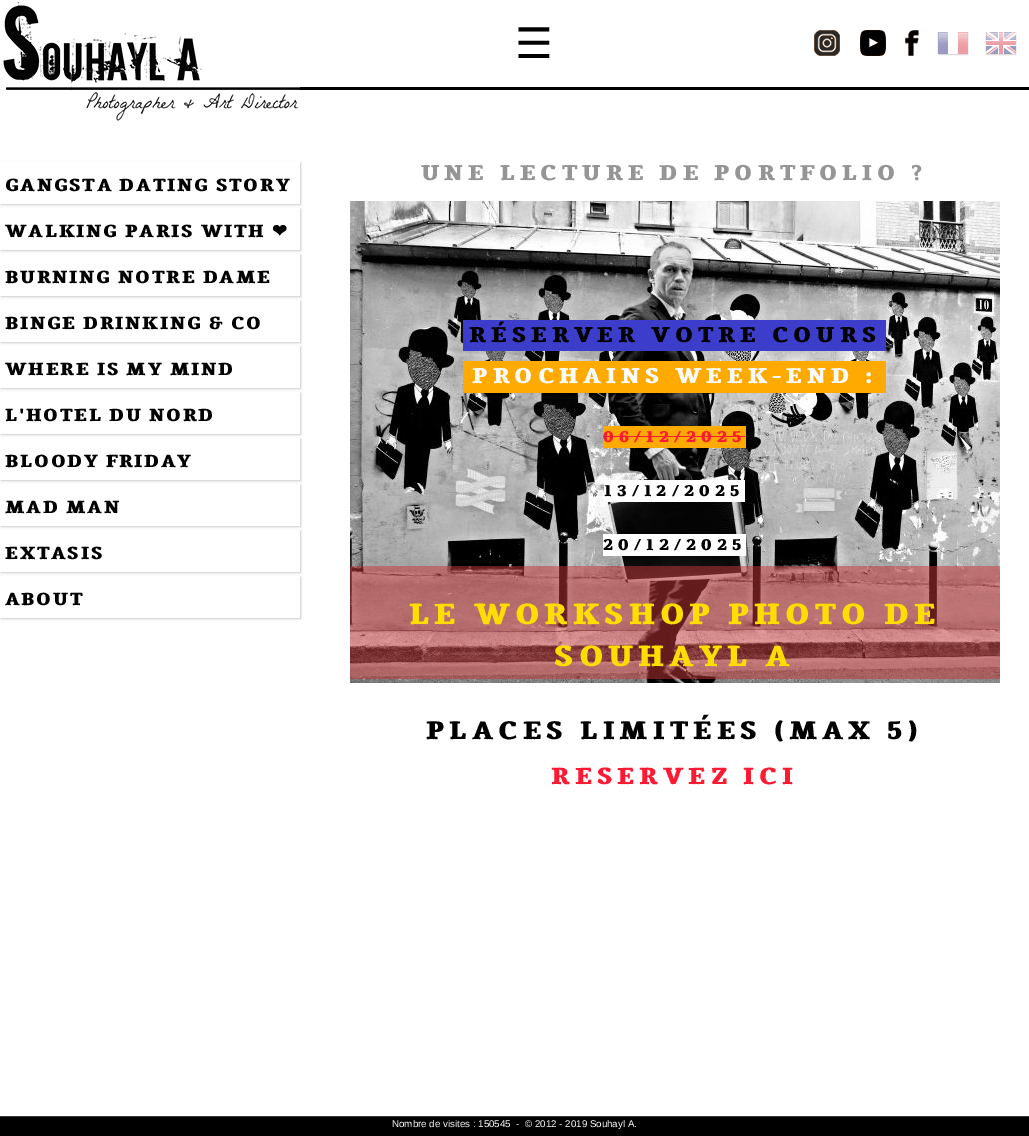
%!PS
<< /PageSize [1029 1136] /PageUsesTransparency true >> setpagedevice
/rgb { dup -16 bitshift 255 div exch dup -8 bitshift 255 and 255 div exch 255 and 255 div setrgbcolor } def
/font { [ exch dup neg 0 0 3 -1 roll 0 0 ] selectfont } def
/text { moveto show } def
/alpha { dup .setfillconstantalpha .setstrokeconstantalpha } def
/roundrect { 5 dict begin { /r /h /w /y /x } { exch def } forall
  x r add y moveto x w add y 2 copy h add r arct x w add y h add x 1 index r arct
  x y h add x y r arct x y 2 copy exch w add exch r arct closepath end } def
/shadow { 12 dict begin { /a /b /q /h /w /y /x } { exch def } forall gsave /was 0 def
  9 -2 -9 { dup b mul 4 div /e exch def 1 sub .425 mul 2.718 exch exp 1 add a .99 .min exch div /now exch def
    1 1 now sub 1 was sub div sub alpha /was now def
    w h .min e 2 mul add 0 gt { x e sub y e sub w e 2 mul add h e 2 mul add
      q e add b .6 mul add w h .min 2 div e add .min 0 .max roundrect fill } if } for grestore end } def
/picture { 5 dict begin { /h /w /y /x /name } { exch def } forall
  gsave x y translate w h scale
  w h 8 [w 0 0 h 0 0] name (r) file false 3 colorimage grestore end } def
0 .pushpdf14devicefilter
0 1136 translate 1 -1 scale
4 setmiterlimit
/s1 { /DejaVuSans-Regular 42 font 16#000000 rgb } def
/s2 { /LiberationSans-Regular 9.75 font 16#FCFCFC rgb } def
16#FFFFFF rgb
0 0 1029 1136 rectfill
16#000000 rgb
300 87 729 3 rectfill
(pic1.raw) 0 1 300 120 picture
s1
(☰) 515 58 text
(pic2.raw) 814 30 26 26 picture
(pic3.raw) 814 30 26 26 picture
(pic4.raw) 860 30 26 26 picture
(pic5.raw) 860 30 26 26 picture
(pic6.raw) 905 30 14 26 picture
(pic7.raw) 905 30 14 26 picture
(pic8.raw) 937 32 32 24 picture
(pic9.raw) 985 32 32 24 picture
gsave
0 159 moveto 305 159 lineto 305 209 lineto 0 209 lineto closepath 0 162 moveto 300 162 lineto 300 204 lineto 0 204 lineto closepath eoclip newpath
1 163 300 42 0 1 0.2 shadow
grestore
/Tienne-Black 18 font
5 191 moveto 1.7 0 (GANGSTA DATING STORY) ashow
gsave
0 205 moveto 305 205 lineto 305 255 lineto 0 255 lineto closepath 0 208 moveto 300 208 lineto 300 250 lineto 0 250 lineto closepath eoclip newpath
1 209 300 42 0 1 0.2 shadow
grestore
5 237 moveto 1.7 0 (WALKING PARIS WITH) ashow
/DejaVuSans-Bold 18 font
272 237 moveto 1.7 0 (❤) ashow
gsave
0 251 moveto 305 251 lineto 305 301 lineto 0 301 lineto closepath 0 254 moveto 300 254 lineto 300 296 lineto 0 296 lineto closepath eoclip newpath
1 255 300 42 0 1 0.2 shadow
grestore
/Tienne-Black 18 font
5 283 moveto 1.7 0 (BURNING NOTRE DAME) ashow
gsave
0 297 moveto 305 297 lineto 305 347 lineto 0 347 lineto closepath 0 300 moveto 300 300 lineto 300 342 lineto 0 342 lineto closepath eoclip newpath
1 301 300 42 0 1 0.2 shadow
grestore
5 329 moveto 1.7 0 (BINGE DRINKING & CO) ashow
gsave
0 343 moveto 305 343 lineto 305 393 lineto 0 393 lineto closepath 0 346 moveto 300 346 lineto 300 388 lineto 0 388 lineto closepath eoclip newpath
1 347 300 42 0 1 0.2 shadow
grestore
5 375 moveto 1.7 0 (WHERE IS MY MIND) ashow
gsave
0 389 moveto 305 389 lineto 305 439 lineto 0 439 lineto closepath 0 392 moveto 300 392 lineto 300 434 lineto 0 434 lineto closepath eoclip newpath
1 393 300 42 0 1 0.2 shadow
grestore
5 421 moveto 1.7 0 (L'HOTEL DU NORD) ashow
gsave
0 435 moveto 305 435 lineto 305 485 lineto 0 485 lineto closepath 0 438 moveto 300 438 lineto 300 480 lineto 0 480 lineto closepath eoclip newpath
1 439 300 42 0 1 0.2 shadow
grestore
5 467 moveto 1.7 0 (BLOODY FRIDAY) ashow
gsave
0 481 moveto 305 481 lineto 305 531 lineto 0 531 lineto closepath 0 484 moveto 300 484 lineto 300 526 lineto 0 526 lineto closepath eoclip newpath
1 485 300 42 0 1 0.2 shadow
grestore
5 513 moveto 1.7 0 (MAD MAN) ashow
gsave
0 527 moveto 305 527 lineto 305 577 lineto 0 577 lineto closepath 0 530 moveto 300 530 lineto 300 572 lineto 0 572 lineto closepath eoclip newpath
1 531 300 42 0 1 0.2 shadow
grestore
5 559 moveto 1.7 0 (EXTASIS) ashow
gsave
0 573 moveto 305 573 lineto 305 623 lineto 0 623 lineto closepath 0 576 moveto 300 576 lineto 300 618 lineto 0 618 lineto closepath eoclip newpath
1 577 300 42 0 1 0.2 shadow
grestore
5 605 moveto 1.7 0 (ABOUT) ashow
/Tienne-Black 22 font
16#959595 rgb
421 180 moveto 5 0 (UNE LECTURE DE PORTFOLIO ?) ashow
(pic10.raw) 350 201 650 482 picture
16#3D3DCC rgb
463 320 423 31 rectfill
16#000000 rgb
469 342 moveto 5 0 (RÉSERVER VOTRE COURS) ashow
16#FFAA01 rgb
463 361 423 32 rectfill
16#FCFCFC rgb
472 383 moveto 5 0 (PROCHAINS WEEK-END :) ashow
16#FFAA01 rgb
603 426 143 22 rectfill
/Tienne-Black 16 font
16#FF1A33 rgb
603 442 moveto 5 0 (06/12/2025) ashow
603 436 143 1 rectfill
16#FFFFFF rgb
604 480 141 22 rectfill
16#000000 rgb
604 496 moveto 5 0 (13/12/2025) ashow
16#FFFFFF rgb
603 534 143 22 rectfill
16#000000 rgb
603 550 moveto 5 0 (20/12/2025) ashow
0.5 alpha
16#C83636 rgb
350 566 650 113 rectfill
/Tienne-Black 30 font
1 alpha
16#FEDD00 rgb
409 624 moveto 5 0 (LE WORKSHOP PHOTO DE) ashow
554 666 moveto 5 0 (SOUHAYL A) ashow
/Tienne-Black 26 font
16#000000 rgb
426 739 moveto 5 0 (PLACES LIMITÉES \(MAX 5\)) ashow
/Tienne-Black 24 font
16#FF1A33 rgb
551 784 moveto 5 0 (RESERVEZ ICI) ashow
16#000000 rgb
0 1117 1029 19 rectfill
16#3A3A3A rgb
0 1116 1029 1 rectfill
s2
(Nombre de visites : 150545) 392 1127 text
(-) 516 1127 text
(© 2012 - 2019 Souhayl A.) 525 1127 text
.poppdf14devicefilter showpage
